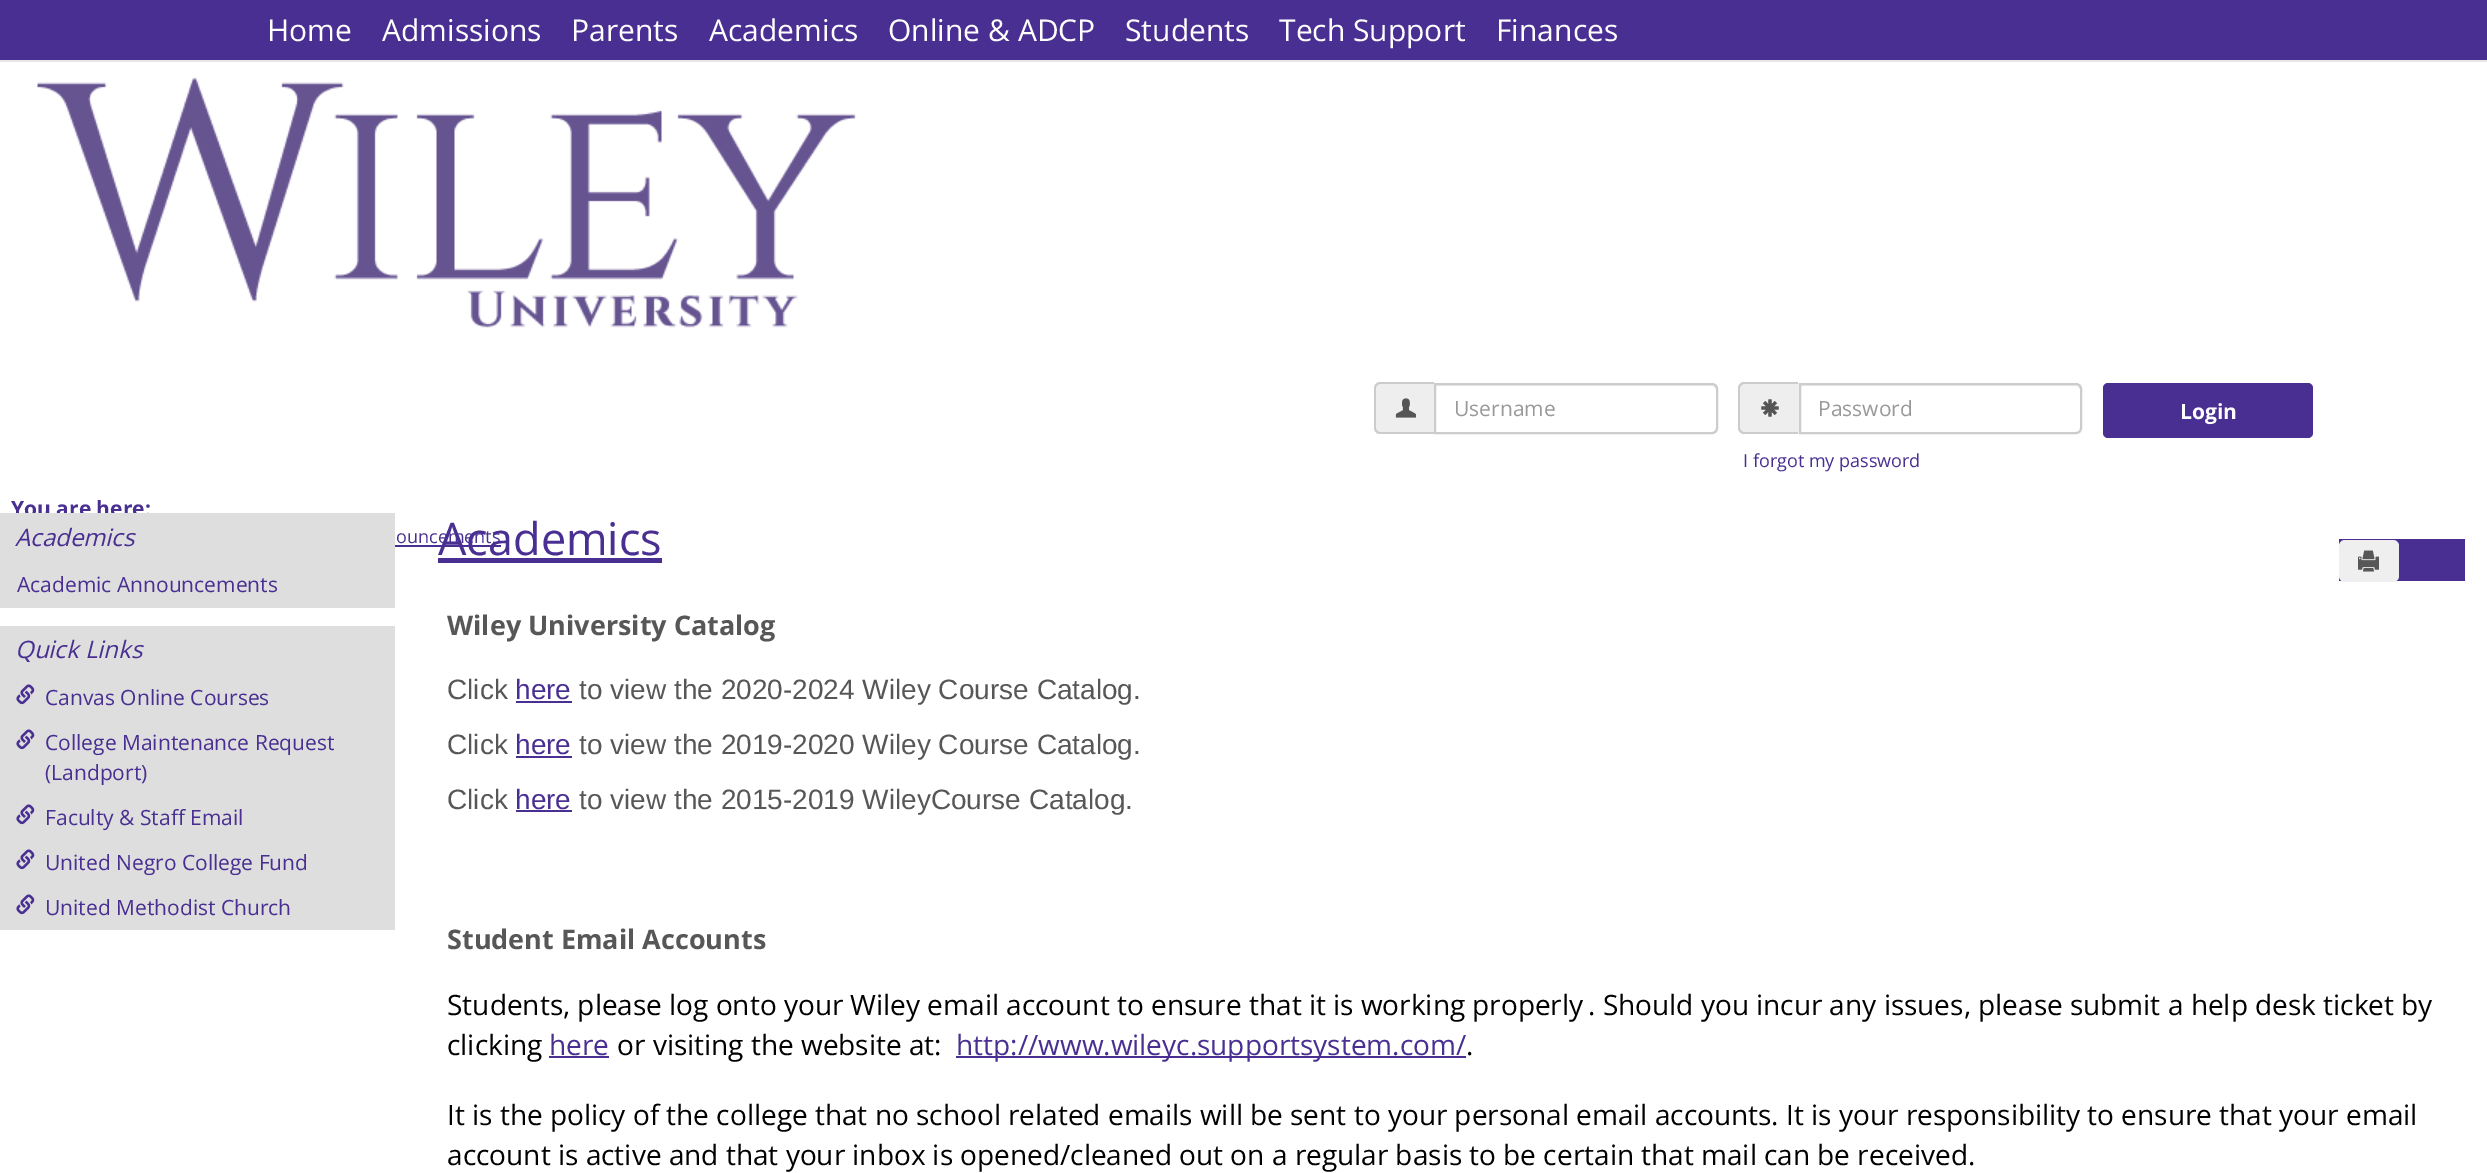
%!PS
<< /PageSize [2487 1173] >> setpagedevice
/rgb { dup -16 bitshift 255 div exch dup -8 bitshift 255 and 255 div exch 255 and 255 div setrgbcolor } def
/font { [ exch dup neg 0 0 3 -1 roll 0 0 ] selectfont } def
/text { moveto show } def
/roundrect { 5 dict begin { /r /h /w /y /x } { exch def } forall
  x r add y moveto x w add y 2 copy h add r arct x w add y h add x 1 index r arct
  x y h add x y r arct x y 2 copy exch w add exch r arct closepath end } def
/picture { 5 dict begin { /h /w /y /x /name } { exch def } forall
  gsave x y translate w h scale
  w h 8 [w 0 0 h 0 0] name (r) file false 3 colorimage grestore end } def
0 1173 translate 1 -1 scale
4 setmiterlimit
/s1 { /OpenSans-Regular 30 font 16#FFFFFF rgb } def
/s2 { /OpenSans-Regular 21 font 16#999999 rgb } def
/s3 { /OpenSans-Bold 21 font 16#FFFFFF rgb } def
/s4 { /OpenSans-Regular 18 font 16#492F92 rgb } def
/s5 { /OpenSans-Bold 21 font 16#492F92 rgb } def
/s6 { /OpenSans-Italic 24 font 16#492F92 rgb } def
/s7 { /OpenSans-Regular 21 font 16#492F92 rgb } def
/s8 { /OpenSans-Regular 45 font 16#492F92 rgb } def
/s9 { /OpenSans-Bold 27 font 16#575757 rgb } def
/s10 { /LiberationSans-Regular 28 font 16#575757 rgb } def
/s11 { /LiberationSans-Regular 28 font 16#492F92 rgb } def
/s12 { /OpenSans-Regular 28 font 16#000000 rgb } def
/s13 { /OpenSans-Regular 28 font 16#492F92 rgb } def
16#FFFFFF rgb
0 0 2487 1173 rectfill
16#492F92 rgb
0 0 2487 60 rectfill
16#E7E7E7 rgb
0 60 2487 2 rectfill
s1
(Home) 267 41 text
(Admissions) 382 41 text
(Parents) 571 41 text
(Academics) 709 41 text
(Online & ADCP) 888 41 text
(Students) 1125 41 text
(Tech Support) 1279 41 text
(Finances) 1496 41 text
(pic1.raw) 37 77 819 251 picture
16#EEEEEE rgb
1380 383 moveto 1434 383 lineto 1434 434 lineto 1380 434 lineto 1376.5 434 1374 431.5 1374 428 curveto 1374 389 lineto 1374 385.5 1376.5 383 1380 383 curveto closepath fill
16#CCCCCC rgb
1380 382 moveto 1434 382 lineto 1434 434 lineto 1380 434 lineto 1377 434 1374 431 1374 428 curveto 1374 388 lineto 1374 385 1377 382 1380 382 curveto closepath 1380 384 moveto 1434 384 lineto 1434 432 lineto 1380 432 lineto 1378 432 1376 430 1376 428 curveto 1376 388 lineto 1376 386 1378 384 1380 384 curveto closepath eofill
(pic2.raw) 1395 398 21 20 picture
16#ECECEC rgb
1436 386 moveto 1712 386 lineto 1714 386 1716 388 1716 390 curveto 1716 389 lineto 1716 386 1714 384 1711 384 curveto 1436 384 lineto closepath fill
16#CCCCCC rgb
2 setlinewidth
1435 384 moveto 1712 384 lineto 1715 384 1717 386 1717 389 curveto 1717 428 lineto 1717 431 1715 433 1712 433 curveto 1435 433 lineto closepath stroke
s2
(Username) 1454 416 text
16#EEEEEE rgb
1745 383 moveto 1799 383 lineto 1799 434 lineto 1745 434 lineto 1741.5 434 1739 431.5 1739 428 curveto 1739 389 lineto 1739 385.5 1741.5 383 1745 383 curveto closepath fill
16#CCCCCC rgb
1744 382 moveto 1798 382 lineto 1798 434 lineto 1744 434 lineto 1741 434 1738 431 1738 428 curveto 1738 388 lineto 1738 385 1741 382 1744 382 curveto closepath 1744 384 moveto 1798 384 lineto 1798 432 lineto 1744 432 lineto 1742 432 1740 430 1740 428 curveto 1740 388 lineto 1740 386 1742 384 1744 384 curveto closepath eofill
(pic3.raw) 1761 399 18 18 picture
16#ECECEC rgb
1800 386 moveto 2076 386 lineto 2078 386 2080 388 2080 390 curveto 2080 430 lineto 2081 429 2081 428 2081 427 curveto 2081 389 lineto 2081 386 2079 384 2076 384 curveto 1800 384 lineto closepath fill
16#CCCCCC rgb
1800 384 moveto 2076 384 lineto 2079 384 2081 386 2081 389 curveto 2081 428 lineto 2081 431 2079 433 2076 433 curveto 1800 433 lineto closepath stroke
s2
(Password) 1818 416 text
16#492F92 rgb
2103 383 210 55 5 roundrect fill
s3
(Login) 2180 419 text
s4
(I forgot my password) 1743 467 text
s5
(You are here:) 11 516 text
s4
(ouncements) 396 543 text
395 545 106 2 rectfill
16#DEDEDE rgb
0 513 395 417 rectfill
s6
(Academics) 15 546 text
s7
(Academic Announcements) 17 592 text
16#FFFFFF rgb
0 608 395 18 rectfill
s6
(Quick Links) 15 658 text
(pic4.raw) 16 684 19 21 picture
s7
(Canvas Online Courses) 45 705 text
(pic4.raw) 16 729 19 21 picture
(College Maintenance Request) 45 750 text
(\(Landport\)) 45 780 text
(pic4.raw) 16 804 19 21 picture
(Faculty & Staff Email) 45 825 text
(pic4.raw) 16 849 19 21 picture
(United Negro College Fund) 45 870 text
(pic4.raw) 16 894 19 21 picture
(United Methodist Church) 45 915 text
s8
(Academics) 438 555 text
438 558 224 5 rectfill
2339 539 126 42 rectfill
16#EFEFEF rgb
2339 540 60 42 6 roundrect fill
(pic5.raw) 2358 550 21 22 picture
s9
(Wiley University Catalog) 447 635 text
s10
(Click) 447 699 text
s11
(here) 515 699 text
516 701 56 2 rectfill
s10
(to view the 2020-2024 Wiley Course Catalog.) 579 699 text
(Click) 447 754 text
s11
(here) 515 754 text
516 756 56 2 rectfill
s10
(to view the 2019-2020 Wiley Course Catalog.) 579 754 text
(Click) 447 809 text
s11
(here) 515 809 text
516 810 56 2 rectfill
s10
(to view the 2015-2019 WileyCourse Catalog.) 579 809 text
s9
(Student Email Accounts) 447 949 text
s12
(Students, please log onto your Wiley email account to ensure that it is working properly) 447 1015 text
(. Should you incur any issues, please submit a help desk ticket by) 1588 1015 text
(clicking) 447 1055 text
s13
(here) 549 1055 text
549 1056 60 2 rectfill
s12
(or visiting the website at:) 617 1055 text
16#492F92 rgb
956 1056 510 2 rectfill
(http://www.wileyc.supportsystem.com/) 956 1055 text
s12
(.) 1466 1055 text
(It is the policy of the college that no school related emails will be sent to your personal email accounts. It is your responsibility to ensure that your email) 447 1125 text
(account is active and that your inbox is opened/cleaned out on a regular basis to be certain that mail can be received.) 447 1165 text
showpage
